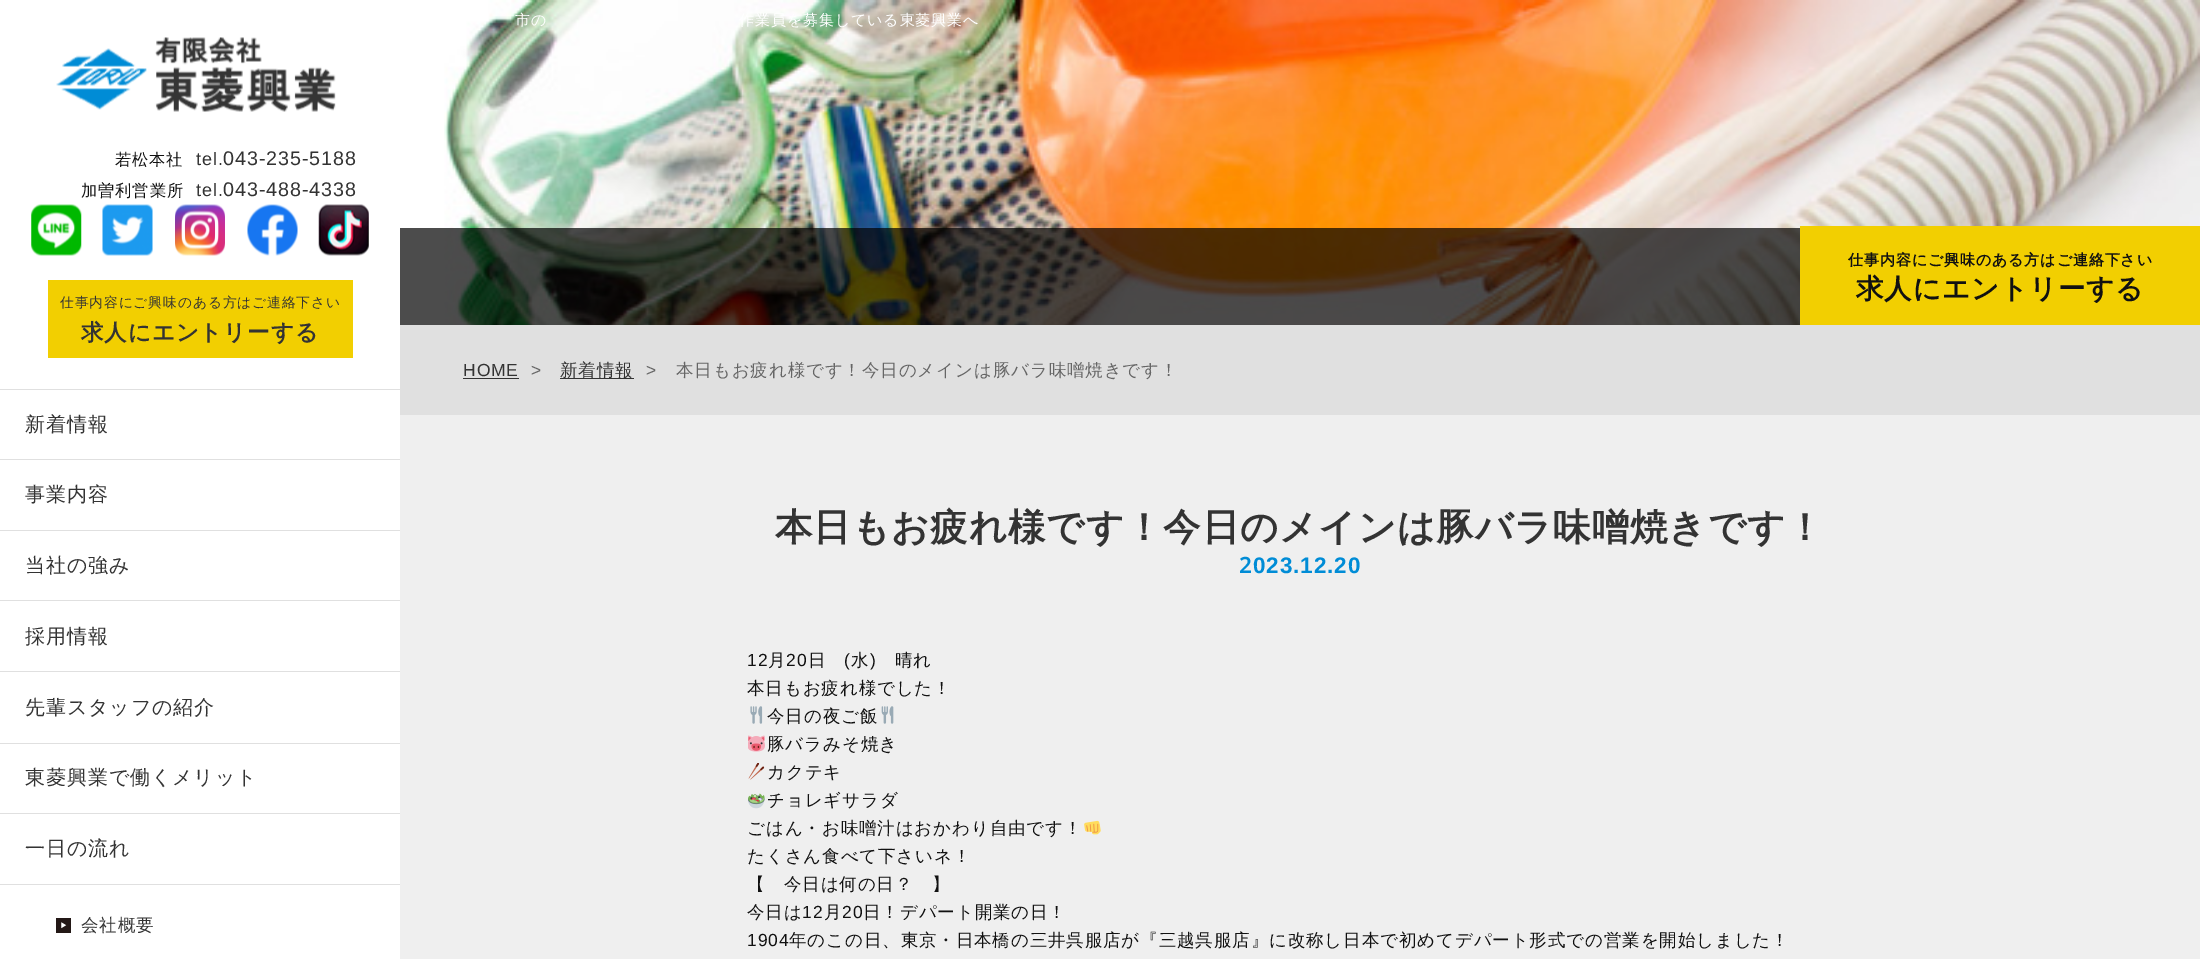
%!PS
<< /PageSize [2200 959] /PageUsesTransparency true >> setpagedevice
/rgb { dup -16 bitshift 255 div exch dup -8 bitshift 255 and 255 div exch 255 and 255 div setrgbcolor } def
/font { [ exch dup neg 0 0 3 -1 roll 0 0 ] selectfont } def
/alpha { dup .setfillconstantalpha .setstrokeconstantalpha } def
/picture { 5 dict begin { /h /w /y /x /name } { exch def } forall
  gsave x y translate w h scale
  w h 8 [w 0 0 h 0 0] name (r) file false 3 colorimage grestore end } def
0 .pushpdf14devicefilter
0 959 translate 1 -1 scale
4 setmiterlimit
16#FFFFFF rgb
0 0 2200 959 rectfill
(pic1.raw) 56 37 280 75 picture
/WenQuanYiZenHei-Medium 16.25 font
16#111111 rgb
115 165 moveto 0.88 0 (若松本社) ashow
/LiberationSans-Regular 18 font
16#333333 rgb
196 165 moveto 0.88 0 (tel.) ashow
/LiberationSans-Regular 19.75 font
223 165 moveto 0.88 0 (043-235-5188) ashow
/WenQuanYiZenHei-Medium 16.25 font
16#111111 rgb
81 196 moveto 0.88 0 (加曽利営業所) ashow
/LiberationSans-Regular 18 font
16#333333 rgb
196 196 moveto 0.88 0 (tel.) ashow
/LiberationSans-Regular 19.75 font
223 196 moveto 0.88 0 (043-488-4338) ashow
(pic2.raw) 31 204 51 52 picture
(pic3.raw) 102 204 51 52 picture
(pic4.raw) 175 204 50 52 picture
(pic5.raw) 247 204 51 52 picture
(pic6.raw) 318 204 51 52 picture
16#F2CF01 rgb
48 280 305 78 rectfill
/WenQuanYiZenHei-Medium 13.75 font
16#333333 rgb
60 307 moveto 0.88 0 (仕事内容にご興味のある方はご連絡下さい) ashow
/WenQuanYiZenHei-Bold 22.5 font
81 340 moveto 0.88 0 (求人にエントリーする) ashow
16#E0E0E0 rgb
0 389 400 1 rectfill
/WenQuanYiZenHei-Medium 20 font
16#333333 rgb
25 431 moveto 0.88 0 (新着情報) ashow
16#E0E0E0 rgb
0 459 400 1 rectfill
16#333333 rgb
25 501 moveto 0.88 0 (事業内容) ashow
16#E0E0E0 rgb
0 530 400 1 rectfill
16#333333 rgb
25 572 moveto 0.88 0 (当社の強み) ashow
16#E0E0E0 rgb
0 600 400 1 rectfill
16#333333 rgb
25 643 moveto 0.88 0 (採用情報) ashow
16#E0E0E0 rgb
0 671 400 1 rectfill
16#333333 rgb
25 714 moveto 0.88 0 (先輩スタッフの紹介) ashow
16#E0E0E0 rgb
0 743 400 1 rectfill
16#333333 rgb
25 784 moveto 0.88 0 (東菱興業で働くメリット) ashow
16#E0E0E0 rgb
0 813 400 1 rectfill
0 884 400 1 rectfill
16#333333 rgb
25 855 moveto 0.88 0 (一日の流れ) ashow
(pic7.raw) 56 918 15 15 picture
/WenQuanYiZenHei-Medium 17.5 font
81 931 moveto 0.88 0 (会社概要) ashow
(pic8.raw) 444 0 1756 325 picture
/WenQuanYiZenHei-Medium 15 font
16#FFFFFF rgb
515 25 moveto 0.88 0 (市の) ashow
739 25 moveto 0.88 0 (作業員を募集している東菱興業へ) ashow
0.7 alpha
16#000000 rgb
400 228 1400 97 rectfill
1 alpha
16#F2CF01 rgb
1800 226 400 99 rectfill
/WenQuanYiZenHei-Bold 15 font
16#111111 rgb
1848 265 moveto 0.88 0 (仕事内容にご興味のある方はご連絡下さい) ashow
/WenQuanYiZenHei-Bold 27.5 font
1856 298 moveto 0.88 0 (求人にエントリーする) ashow
16#E0E0E0 rgb
400 325 1800 90 rectfill
/LiberationSans-Regular 17.5 font
16#333333 rgb
463 376 moveto 0.88 0 (HOME) ashow
463 378 56 1 rectfill
16#666666 rgb
531 376 moveto 0.88 0 (>) ashow
16#333333 rgb
560 378 74 1 rectfill
/WenQuanYiZenHei-Medium 17.5 font
560 376 moveto 0.88 0 (新着情報) ashow
/LiberationSans-Regular 17.5 font
16#666666 rgb
646 376 moveto 0.88 0 (>) ashow
/WenQuanYiZenHei-Medium 17.5 font
676 376 moveto 0.88 0 (本日もお疲れ様です！今日のメインは豚バラ味噌焼きです！) ashow
16#EFEFEF rgb
400 415 1800 544 rectfill
/WenQuanYiZenHei-Bold 37.5 font
16#333333 rgb
775 540 moveto 0.88 0 (本日もお疲れ様です！今日のメインは豚バラ味噌焼きです！) ashow
/NotoSans-SemiBold 22.5 font
16#008CD6 rgb
1239 573 moveto 0.88 0 (2) ashow
/LiberationSans-Bold 22.5 font
1253 573 moveto 0.88 0 (023.12.20) ashow
/LiberationSans-Regular 17.5 font
16#111111 rgb
747 666 moveto 0.88 0 (12) ashow
/WenQuanYiZenHei-Medium 17.5 font
768 666 moveto 0.88 0 (月) ashow
/LiberationSans-Regular 17.5 font
786 666 moveto 0.88 0 (20) ashow
/WenQuanYiZenHei-Medium 17.5 font
808 666 moveto 0.88 0 (日) ashow
/LiberationSans-Regular 17.5 font
844 666 moveto 0.88 0 (\() ashow
/WenQuanYiZenHei-Medium 17.5 font
851 666 moveto 0.88 0 (水) ashow
/LiberationSans-Regular 17.5 font
870 666 moveto 0.88 0 (\)) ashow
/WenQuanYiZenHei-Medium 17.5 font
895 666 moveto 0.88 0 (晴れ) ashow
747 694 moveto 0.88 0 (本日もお疲れ様でした！) ashow
(pic9.raw) 750 706 13 18 picture
767 722 moveto 0.88 0 (今日の夜ご飯) ashow
(pic10.raw) 881 706 13 18 picture
(pic11.raw) 748 735 17 17 picture
767 750 moveto 0.88 0 (豚バラみそ焼き) ashow
(pic12.raw) 748 763 17 17 picture
767 778 moveto 0.88 0 (カクテキ) ashow
(pic13.raw) 748 793 17 16 picture
767 806 moveto 0.88 0 (チョレギサラダ) ashow
747 834 moveto 0.88 0 (ごはん・お味噌汁はおかわり自由です！) ashow
(pic14.raw) 1084 820 17 15 picture
747 862 moveto 0.88 0 (たくさん食べて下さいネ！) ashow
747 890 moveto 0.88 0 (【　今日は何の日？　】) ashow
747 918 moveto 0.88 0 (今日は) ashow
/LiberationSans-Regular 17.5 font
802 918 moveto 0.88 0 (12) ashow
/WenQuanYiZenHei-Medium 17.5 font
824 918 moveto 0.88 0 (月) ashow
/LiberationSans-Regular 17.5 font
842 918 moveto 0.88 0 (20) ashow
/WenQuanYiZenHei-Medium 17.5 font
863 918 moveto 0.88 0 (日！デパート開業の日！) ashow
/LiberationSans-Regular 17.5 font
747 946 moveto 0.88 0 (1904) ashow
/WenQuanYiZenHei-Medium 17.5 font
789 946 moveto 0.88 0 (年のこの日、東京・日本橋の三井呉服店が『三越呉服店』に改称し日本で初めてデパート形式での営業を開始しました！) ashow
.poppdf14devicefilter showpage
